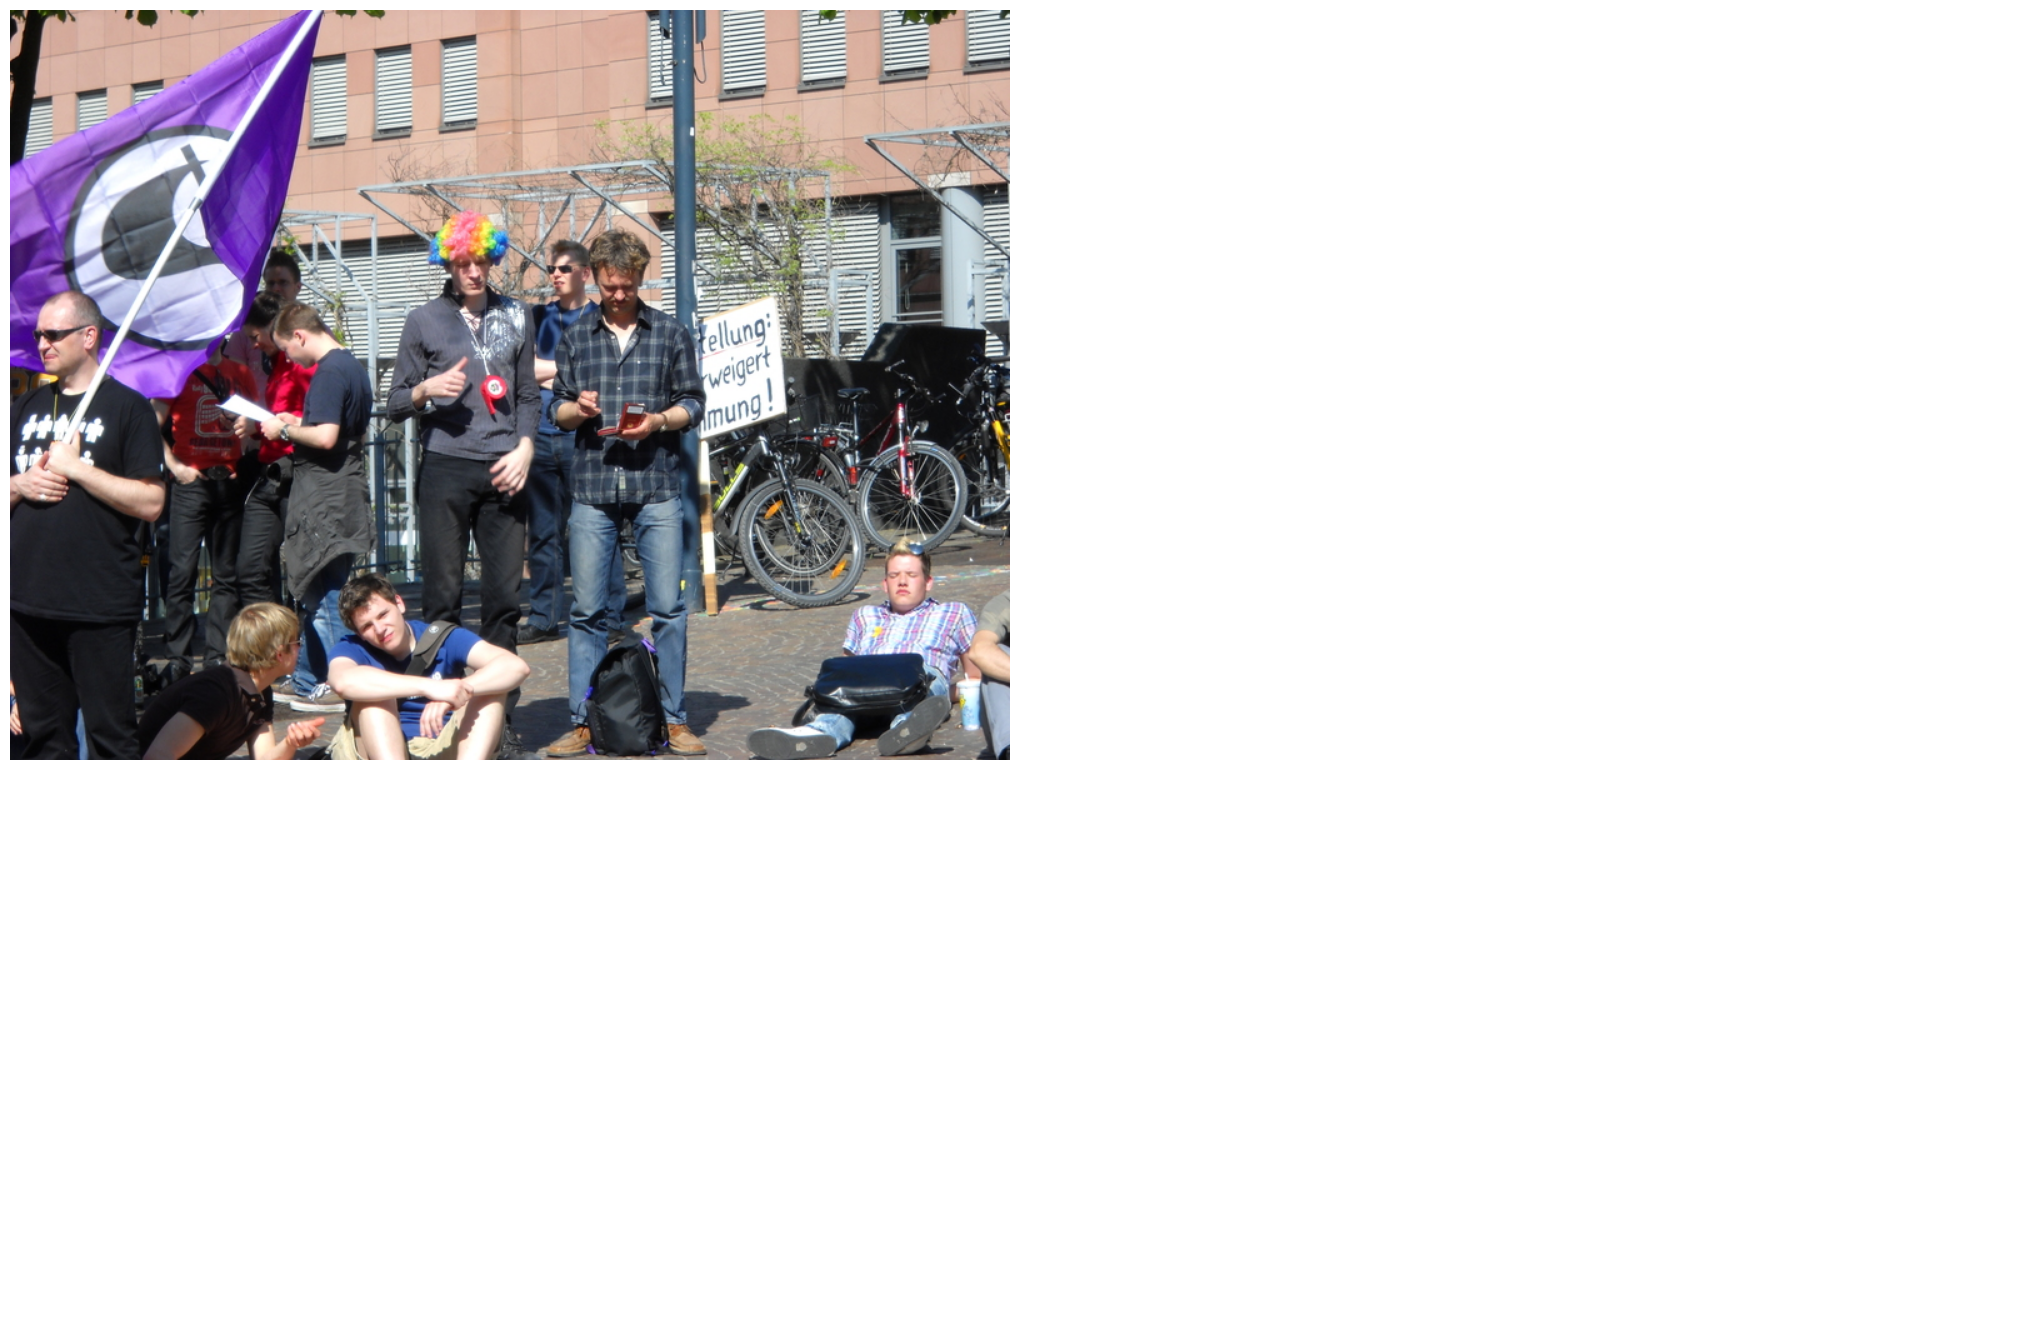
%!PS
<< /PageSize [2043 1317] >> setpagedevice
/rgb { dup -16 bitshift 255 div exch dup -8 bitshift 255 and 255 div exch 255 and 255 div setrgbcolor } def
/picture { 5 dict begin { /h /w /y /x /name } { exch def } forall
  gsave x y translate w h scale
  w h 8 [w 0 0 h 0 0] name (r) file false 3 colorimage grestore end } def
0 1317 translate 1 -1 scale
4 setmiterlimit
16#FFFFFF rgb
0 0 2043 1317 rectfill
(pic1.raw) 10 10 1000 750 picture
showpage
